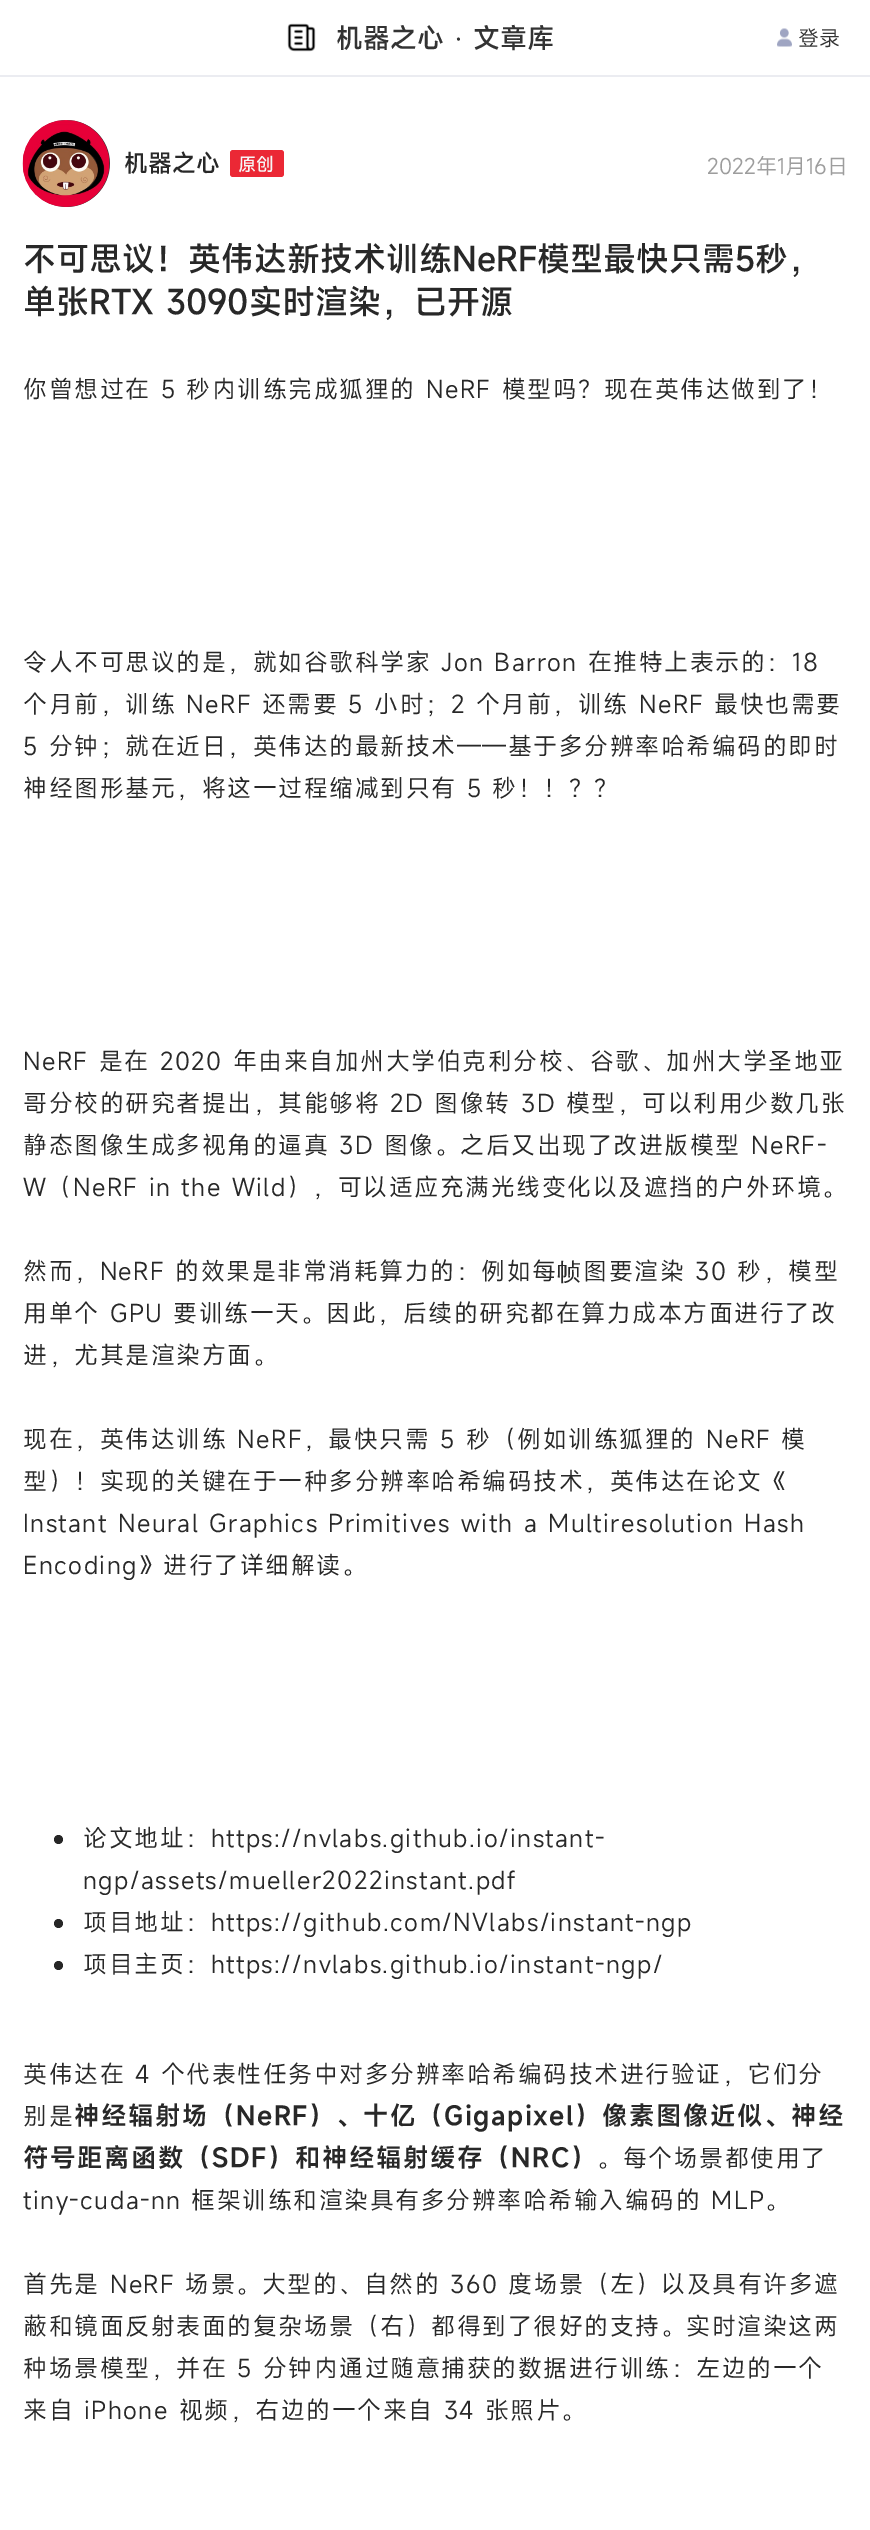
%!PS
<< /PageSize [870 2530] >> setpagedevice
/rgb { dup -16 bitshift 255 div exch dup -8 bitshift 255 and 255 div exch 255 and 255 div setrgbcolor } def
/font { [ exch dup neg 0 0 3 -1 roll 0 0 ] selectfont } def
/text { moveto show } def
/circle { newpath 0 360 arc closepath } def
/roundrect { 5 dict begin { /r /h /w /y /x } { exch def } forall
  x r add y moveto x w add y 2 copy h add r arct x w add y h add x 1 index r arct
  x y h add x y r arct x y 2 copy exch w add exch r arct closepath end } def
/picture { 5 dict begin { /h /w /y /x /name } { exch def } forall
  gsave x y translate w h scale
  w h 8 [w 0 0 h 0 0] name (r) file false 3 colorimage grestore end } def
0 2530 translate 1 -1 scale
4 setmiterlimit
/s1 { /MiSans-Medium 27 font 16#333333 rgb } def
/s2 { /LiberationSerif-Regular 27 font 16#333333 rgb } def
/s3 { /MiSans-Regular 21 font 16#333333 rgb } def
/s4 { /MiSans-Medium 24 font 16#282828 rgb } def
/s5 { /MiSans-Medium 18 font 16#F6F6F6 rgb } def
/s6 { /MiSans-Regular 21 font 16#9D9D9D rgb } def
/s7 { /MiSans-Medium 33 font 16#282828 rgb } def
16#FFFFFF rgb
0 0 870 2530 rectfill
16#EBECF1 rgb
0 75 870 2 rectfill
(pic1.raw) 287 23 29 29 picture
s1
(机器之心) 336 48 text
s2
(·) 454 48 text
s1
(文章库) 473 48 text
(pic2.raw) 777 28 15 19 picture
s3
(登录) 798 46 text
66.5 163.5 43.5 circle fill
(pic3.raw) 22 120 88 87 picture
s4
(机器之心) 124 172 text
16#EB2835 rgb
230 150 54 27 3 roundrect fill
s5
(原创) 238 171 text
s6
(2022年1月16日) 707 174 text
s7
(不可思议！英伟达新技术训练NeRF模型最快只需5秒，) 23 271 text
(单张RTX 3090实时渲染，已开源) 23 314 text
/MiSans-Regular 24 font
23 398 moveto 1.5 0 (你曾想过在 5 秒内训练完成狐狸的 NeRF 模型吗？现在英伟达做到了！) ashow
23 671 moveto 1.5 0 (令人不可思议的是，就如谷歌科学家 Jon Barron 在推特上表示的：18) ashow
23 713 moveto 1.5 0 (个月前，训练 NeRF 还需要 5 小时；2 个月前，训练 NeRF 最快也需要) ashow
23 755 moveto 1.5 0 (5 分钟；就在近日，英伟达的最新技术——基于多分辨率哈希编码的即时) ashow
23 797 moveto 1.5 0 (神经图形基元，将这一过程缩减到只有 5 秒！！？？) ashow
23 1070 moveto 1.5 0 (NeRF 是在 2020 年由来自加州大学伯克利分校、谷歌、加州大学圣地亚) ashow
23 1112 moveto 1.5 0 (哥分校的研究者提出，其能够将 2D 图像转 3D 模型，可以利用少数几张) ashow
23 1154 moveto 1.5 0 (静态图像生成多视角的逼真 3D 图像。之后又出现了改进版模型 NeRF-) ashow
23 1196 moveto 1.5 0 (W（NeRF in the Wild），可以适应充满光线变化以及遮挡的户外环境。) ashow
23 1280 moveto 1.5 0 (然而，NeRF 的效果是非常消耗算力的：例如每) ashow
/WenQuanYiZenHei-Medium 24 font
557 1280 moveto 1.5 0 (帧) ashow
/MiSans-Regular 24 font
583 1280 moveto 1.5 0 (图要渲染 30 秒，模型) ashow
23 1322 moveto 1.5 0 (用单个 GPU 要训练一天。因此，后续的研究都在算力成本方面进行了改) ashow
23 1364 moveto 1.5 0 (进，尤其是渲染方面。) ashow
23 1448 moveto 1.5 0 (现在，英伟达训练 NeRF，最快只需 5 秒（例如训练狐狸的 NeRF 模) ashow
23 1490 moveto 1.5 0 (型）！实现的关键在于一种多分辨率哈希编码技术，英伟达在论文《) ashow
23 1532 moveto 1.5 0 (Instant Neural Graphics Primitives with a Multiresolution Hash) ashow
23 1574 moveto 1.5 0 (Encoding》进行了详细解读。) ashow
16#262626 rgb
58.5 1839.5 4.5 circle fill
16#282828 rgb
83 1847 moveto 1.5 0 (论文地址：https://nvlabs.github.io/instant-) ashow
83 1889 moveto 1.5 0 (ngp/assets/mueller2022instant.pdf) ashow
16#262626 rgb
58.5 1923.5 4.5 circle fill
16#282828 rgb
83 1931 moveto 1.5 0 (项目地址：https://github.com/NVlabs/instant-ngp) ashow
16#262626 rgb
58.5 1965.5 4.5 circle fill
16#282828 rgb
83 1973 moveto 1.5 0 (项目主页：https://nvlabs.github.io/instant-ngp/) ashow
23 2083 moveto 1.5 0 (英伟达在 4 个代表性任务中对多分辨率哈希编码技术进行验证，它们分) ashow
23 2125 moveto 1.5 0 (别是) ashow
/MiSans-SemiBold 25.5 font
74 2125 moveto 1.5 0 (神经辐射场（NeRF）、十亿（Gigapixel）像素图像近似、神经) ashow
23 2167 moveto 1.5 0 (符号距离函数（SDF）和神经辐射缓存（NRC）) ashow
/MiSans-Regular 24 font
597 2167 moveto 1.5 0 (。每个场景都使用了) ashow
23 2209 moveto 1.5 0 (tiny-cuda-nn 框架训练和渲染具有多分辨率哈希输入编码的 MLP。) ashow
23 2293 moveto 1.5 0 (首先是 NeRF 场景。大型的、自然的 360 度场景（左）以及具有许多遮) ashow
23 2335 moveto 1.5 0 (蔽和镜面反射表面的复杂场景（右）都得到了很好的支持。实时渲染这两) ashow
23 2377 moveto 1.5 0 (种场景模型，并在 5 分钟内通过随意捕获的数据进行训练：左边的一个) ashow
23 2419 moveto 1.5 0 (来自 iPhone 视频，右边的一个来自 34 张照片。) ashow
showpage
